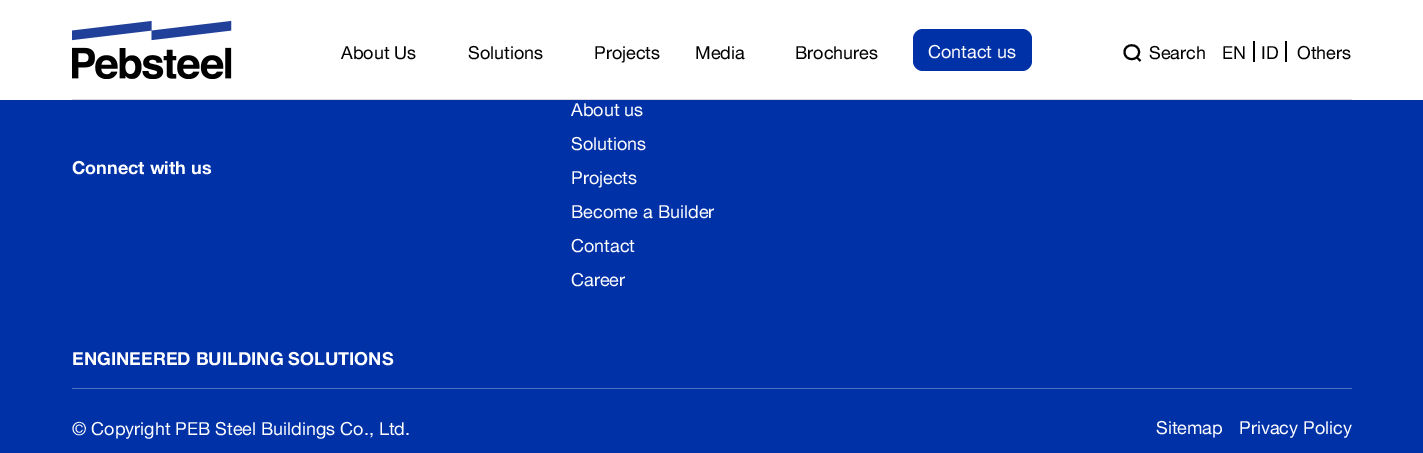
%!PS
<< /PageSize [1423 453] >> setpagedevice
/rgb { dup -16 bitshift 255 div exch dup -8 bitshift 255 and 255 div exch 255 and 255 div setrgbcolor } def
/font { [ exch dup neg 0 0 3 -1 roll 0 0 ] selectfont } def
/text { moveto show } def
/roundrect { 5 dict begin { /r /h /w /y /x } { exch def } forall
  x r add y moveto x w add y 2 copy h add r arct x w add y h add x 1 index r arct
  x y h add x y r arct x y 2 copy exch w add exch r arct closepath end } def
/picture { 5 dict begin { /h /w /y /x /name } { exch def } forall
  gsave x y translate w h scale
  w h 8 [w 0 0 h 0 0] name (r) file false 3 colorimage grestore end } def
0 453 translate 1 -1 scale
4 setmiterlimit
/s1 { /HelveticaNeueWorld-Regular 18 font 16#000000 rgb } def
/s2 { /HelveticaNeueWorld-Regular 18 font 16#FFFFFF rgb } def
/s3 { /HelveticaNeueWorld-Bold 18 font 16#FFFFFF rgb } def
16#0031A7 rgb
0 0 1423 453 rectfill
16#FFFFFF rgb
0 0 1423 100 rectfill
16#D9D9D9 rgb
72 99 1280 1 rectfill
(pic1.raw) 72 21 160 58 picture
s1
(About Us) 341 59 text
(Solutions) 468 59 text
(Projects) 594 59 text
(Media) 695 59 text
(Brochures) 795 59 text
16#0031A7 rgb
913 29 119 42 10 roundrect fill
s2
(Contact us) 928 58 text
16#000000 rgb
2 setlinewidth
1 setlinecap
1140.5 61 moveto 1136.5 57 lineto closepath 1139 52 moveto 1139 61.5 1124.5 61.5 1124.5 52 curveto 1124.5 43 1139 43 1139 52 curveto closepath stroke
(Search) 1149 59 text
(EN) 1222 59 text
1253 41 2 21 rectfill
(ID) 1261 59 text
1285 41 2 21 rectfill
(Others) 1297 59 text
s3
(Connect with us) 72 174 text
(ENGINEERED BUILDING SOLUTIONS) 72 365 text
s2
(About us) 571 116 text
(Solutions) 571 150 text
(Projects) 571 184 text
(Become a Builder) 571 218 text
(Contact) 571 252 text
(Career) 571 286 text
16#4D6FC1 rgb
72 388 1280 1 rectfill
s2
(© Copyright PEB Steel Buildings Co., Ltd.) 72 435 text
(Sitemap) 1156 434 text
(Privacy Policy) 1239 434 text
showpage
